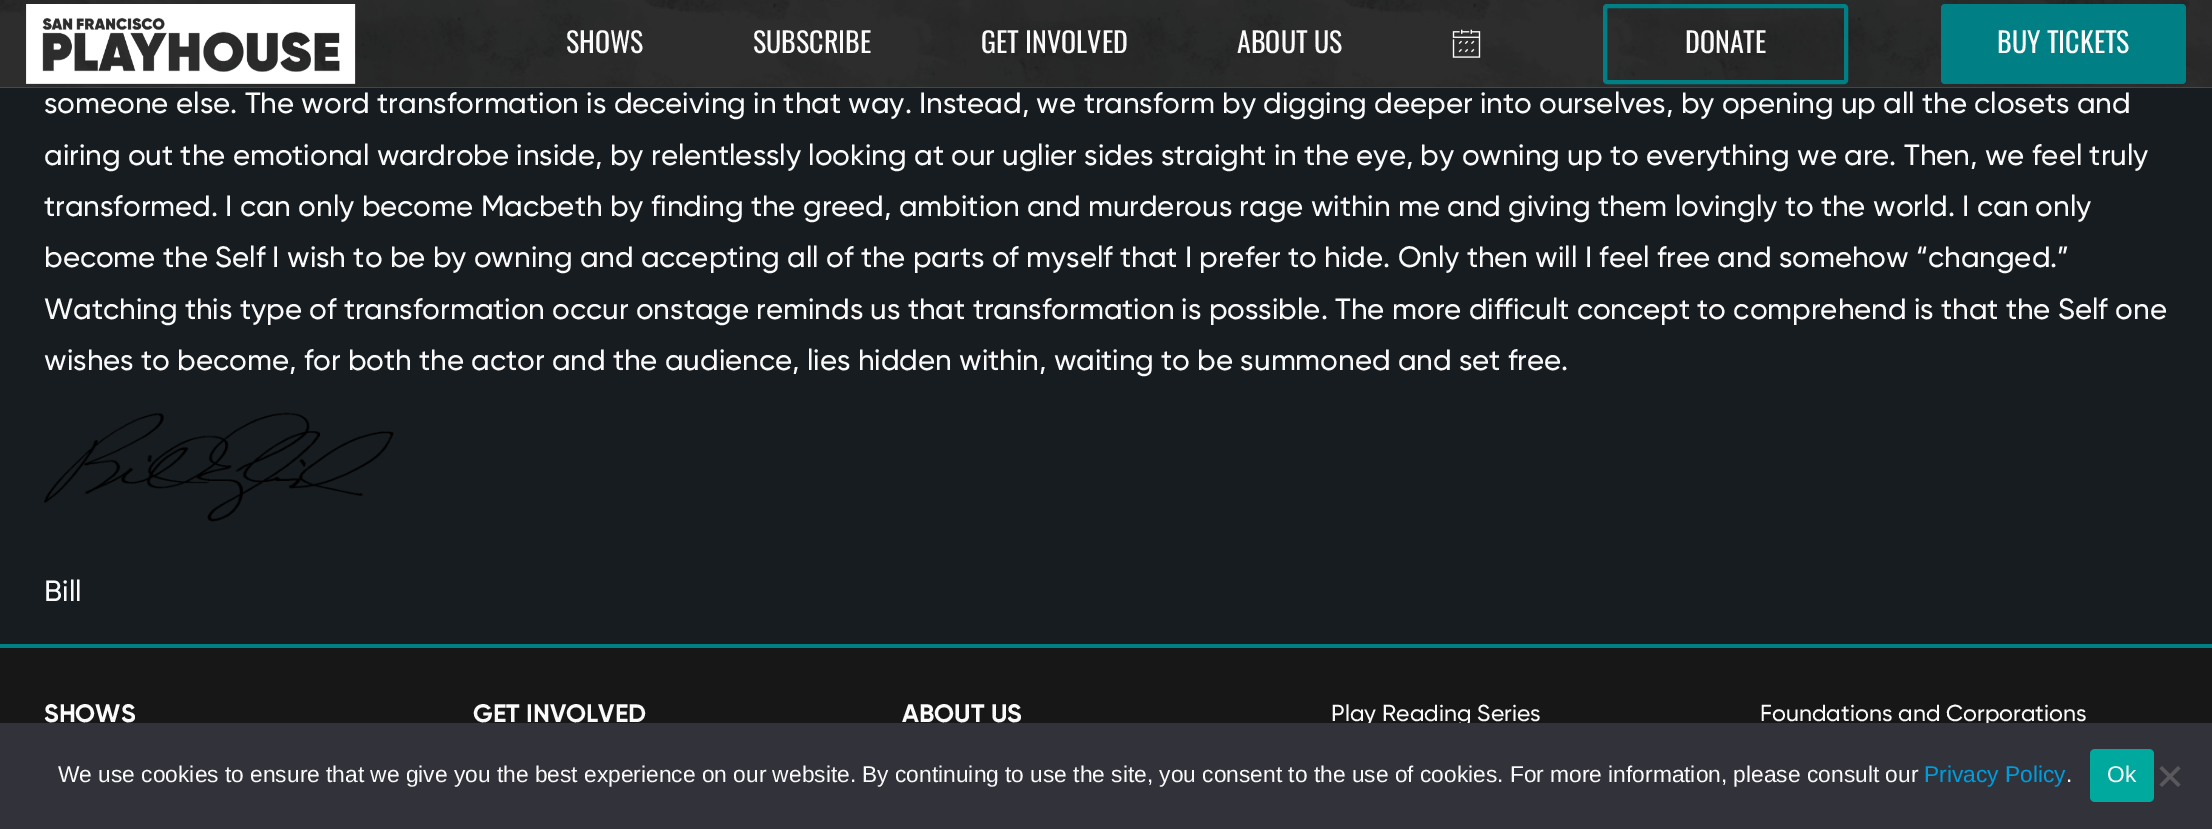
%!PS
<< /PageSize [2212 829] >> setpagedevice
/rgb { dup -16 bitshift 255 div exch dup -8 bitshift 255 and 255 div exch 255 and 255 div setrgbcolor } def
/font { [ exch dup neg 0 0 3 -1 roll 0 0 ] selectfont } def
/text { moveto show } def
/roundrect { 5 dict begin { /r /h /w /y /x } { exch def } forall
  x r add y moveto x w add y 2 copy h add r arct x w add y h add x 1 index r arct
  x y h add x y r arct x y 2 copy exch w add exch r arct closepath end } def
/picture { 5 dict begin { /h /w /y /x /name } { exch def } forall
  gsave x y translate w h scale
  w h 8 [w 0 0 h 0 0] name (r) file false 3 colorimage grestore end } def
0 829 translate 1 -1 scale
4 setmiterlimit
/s1 { /Oswald-Regular 28 font 16#FAFAFA rgb } def
/s2 { /Gilroy-Medium 29.4 font 16#FAFAFA rgb } def
/s3 { /Gilroy-Bold 25.25 font 16#FAFAFA rgb } def
/s4 { /Gilroy-Medium 23.1 font 16#FAFAFA rgb } def
/s5 { /LiberationSans-Regular 22.75 font 16#FAFAFA rgb } def
/s6 { /LiberationSans-Regular 22.75 font 16#009DDC rgb } def
16#171C20 rgb
0 0 2212 829 rectfill
16#008C90 rgb
0 87 2212 1 rectfill
(pic1.raw) 0 0 2212 88 picture
(pic2.raw) 26 4 330 80 picture
s1
(SHOWS) 566 53 text
(SUBSCRIBE) 753 53 text
(GET INVOLVED) 981 53 text
(ABOUT US) 1237 53 text
(pic3.raw) 1452 29 29 29 picture
16#008085 rgb
4 setlinewidth
1605 6 241 76 2 roundrect stroke
s1
(DONATE) 1685 53 text
16#008085 rgb
1941 4 245 80 4 roundrect fill
s1
(BUY TICKETS) 1997 53 text
s2
(someone else. The word transformation is deceiving in that way. Instead, we transform by digging deeper into ourselves, by opening up all the closets and) 44 113 text
(airing out the emotional wardrobe inside, by relentlessly looking at our uglier sides straight in the eye, by owning up to everything we are. Then, we feel truly) 44 165 text
(transformed. I can only become Macbeth by finding the greed, ambition and murderous rage within me and giving them lovingly to the world. I can only) 44 216 text
(become the Self I wish to be by owning and accepting all of the parts of myself that I prefer to hide. Only then will I feel free and somehow “changed.”) 44 267 text
(Watching this type of transformation occur onstage reminds us that transformation is possible. The more difficult concept to comprehend is that the Self one) 44 319 text
(wishes to become, for both the actor and the audience, lies hidden within, waiting to be summoned and set free.) 44 370 text
(pic4.raw) 44 412 350 110 picture
(Bill) 44 601 text
16#171717 rgb
0 648 2212 75 rectfill
16#008085 rgb
0 644 2212 4 rectfill
s3
(SHOWS) 44 722 text
(GET INVOLVED) 473 722 text
(ABOUT US) 902 722 text
s4
(Play Reading Series) 1331 721 text
(Foundations and Corporations) 1760 721 text
16#32323A rgb
0 723 2212 106 rectfill
s5
(We use cookies to ensure that we give you the best experience on our website. By continuing to use the site, you consent to the use of cookies. For more information, please consult our) 58 782 text
s6
(Privacy Policy) 1924 782 text
s5
(.) 2066 782 text
16#00A99D rgb
2090 749 64 53 5 roundrect fill
s5
(Ok) 2107 782 text
16#59595D rgb
2178 766 moveto 2180.5 768.5 lineto 2162 787 lineto 2159.5 784.5 lineto closepath fill
2159.5 768.5 moveto 2162 766 lineto 2180.5 784.5 lineto 2178 787 lineto closepath fill
showpage
